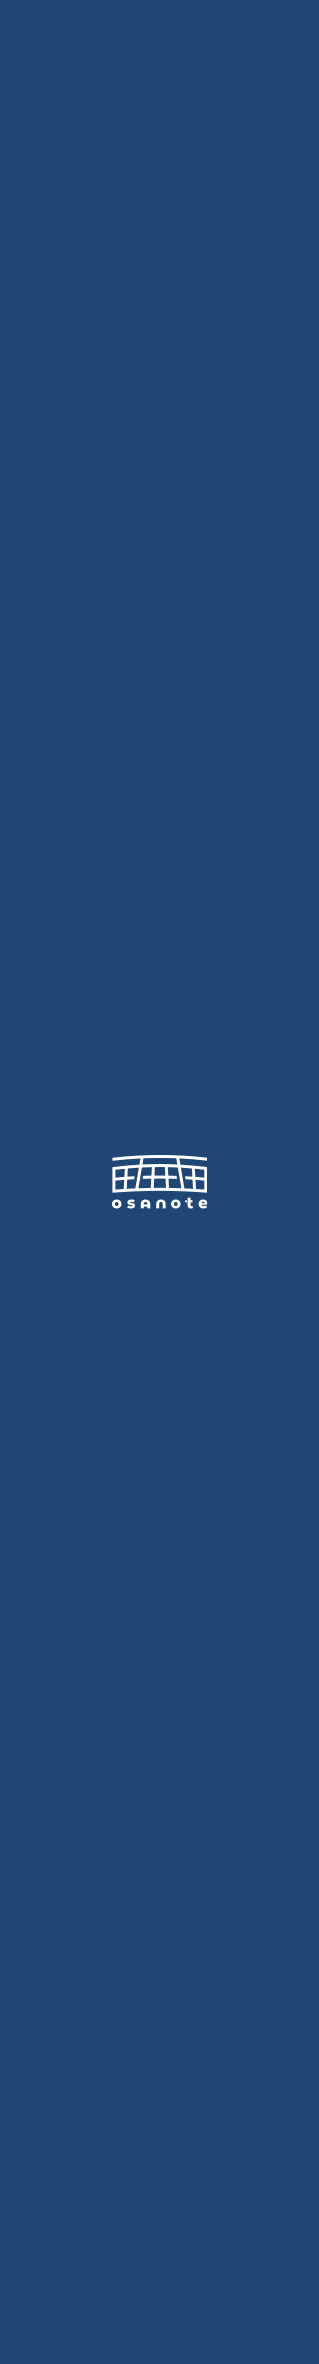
%!PS
<< /PageSize [319 2364] >> setpagedevice
/rgb { dup -16 bitshift 255 div exch dup -8 bitshift 255 and 255 div exch 255 and 255 div setrgbcolor } def
/picture { 5 dict begin { /h /w /y /x /name } { exch def } forall
  gsave x y translate w h scale
  w h 8 [w 0 0 h 0 0] name (r) file false 3 colorimage grestore end } def
0 2364 translate 1 -1 scale
4 setmiterlimit
16#1F4674 rgb
0 0 319 2364 rectfill
(pic1.raw) 112 1155 95 54 picture
showpage
